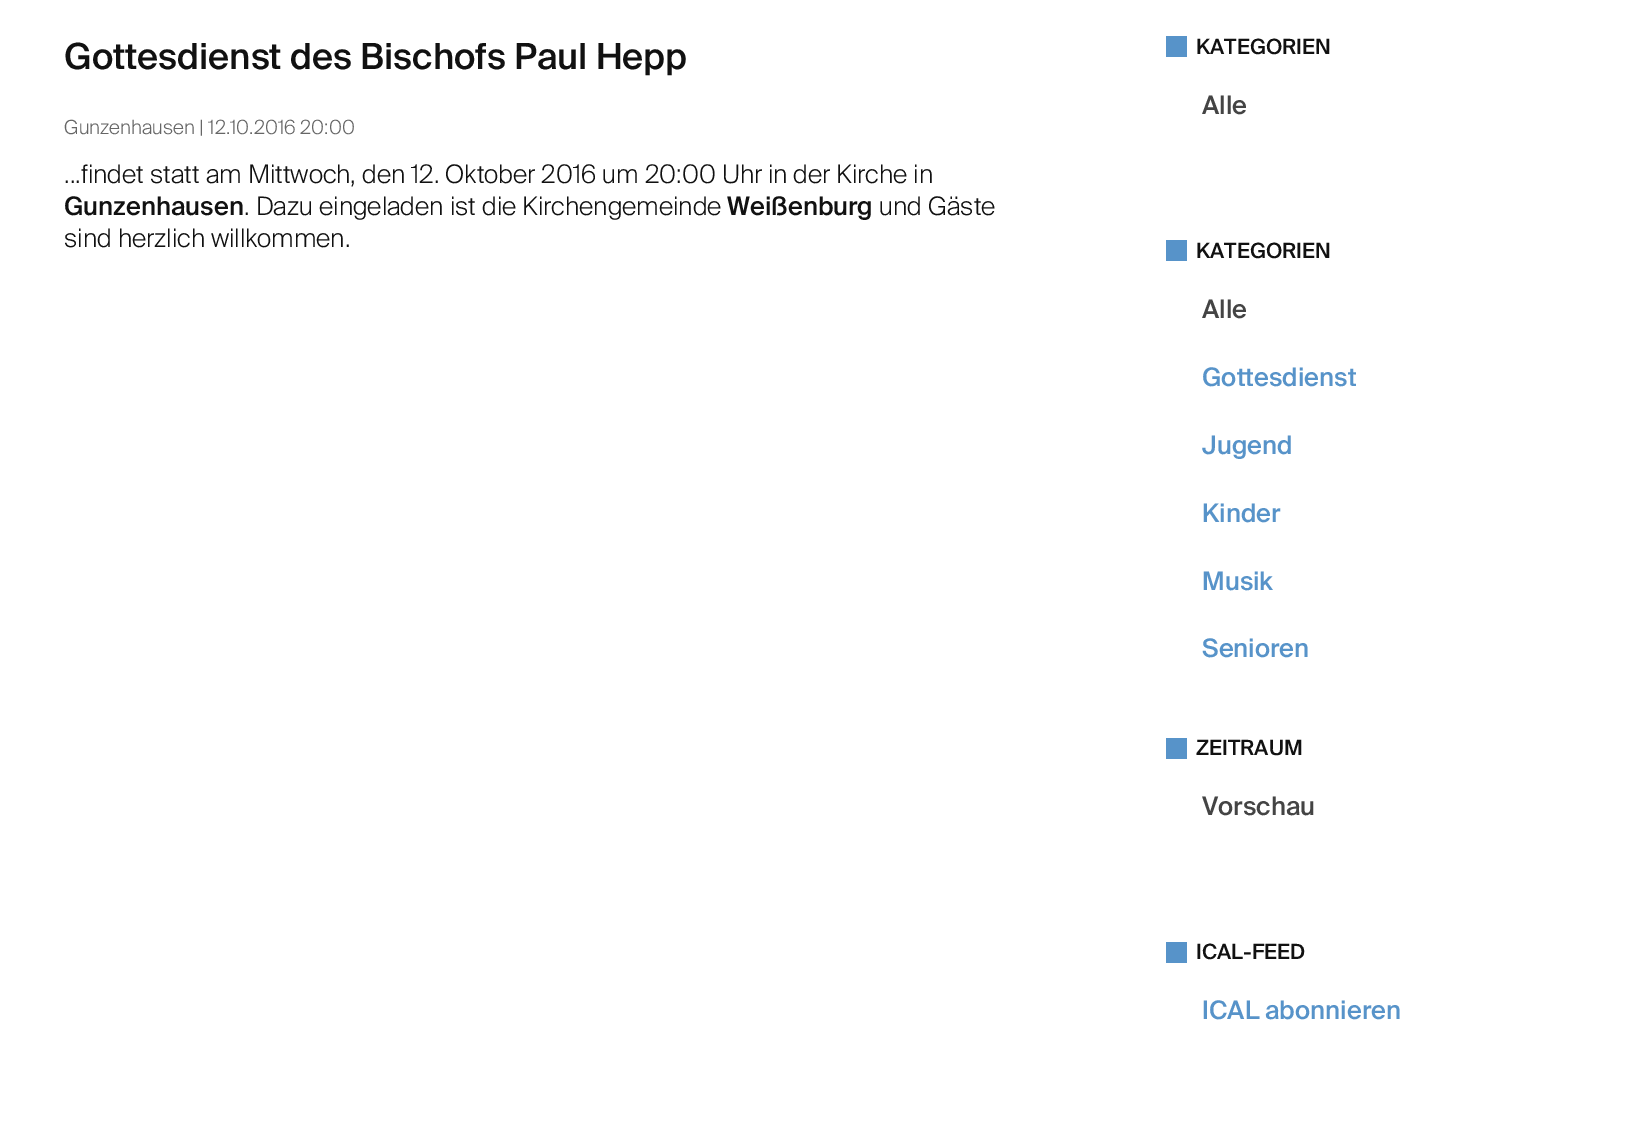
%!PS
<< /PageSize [1637 1126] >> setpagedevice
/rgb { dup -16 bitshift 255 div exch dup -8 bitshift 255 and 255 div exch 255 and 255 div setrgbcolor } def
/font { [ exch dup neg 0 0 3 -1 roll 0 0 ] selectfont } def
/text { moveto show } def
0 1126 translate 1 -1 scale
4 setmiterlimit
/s1 { /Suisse-Medium 36 font 16#111111 rgb } def
/s2 { /Suisse-Light 19.5 font 16#666666 rgb } def
/s3 { /Suisse-Light 25.5 font 16#111111 rgb } def
/s4 { /Suisse-Medium 25.5 font 16#111111 rgb } def
/s5 { /Suisse-Medium 21 font 16#111111 rgb } def
/s6 { /Suisse-Medium 25.5 font 16#444444 rgb } def
/s7 { /Suisse-Medium 25.5 font 16#5793C9 rgb } def
16#FFFFFF rgb
0 0 1637 1126 rectfill
s1
(Gottesdienst des Bischofs Paul Hepp) 64 69 text
s2
(Gunzenhausen | 12.10.2016 20:00) 64 134 text
s3
(...findet statt am Mittwoch, den 12. Oktober 2016 um 20:00 Uhr in der Kirche in) 64 183 text
s4
(Gunzenhausen) 64 215 text
s3
(. Dazu eingeladen ist die Kirchengemeinde) 244 215 text
s4
(Weißenburg) 727 215 text
s3
(und Gäste) 879 215 text
(sind herzlich willkommen.) 64 247 text
16#5793C9 rgb
1166 36 21 21 rectfill
s5
(KATEGORIEN) 1196 54 text
s6
(Alle) 1202 114 text
16#5793C9 rgb
1166 240 21 21 rectfill
s5
(KATEGORIEN) 1196 258 text
s6
(Alle) 1202 318 text
s7
(Gottesdienst) 1202 386 text
(Jugend) 1202 454 text
(Kinder) 1202 522 text
(Musik) 1202 590 text
(Senioren) 1202 657 text
1166 738 21 21 rectfill
s5
(ZEITRAUM) 1196 755 text
s6
(Vorschau) 1202 815 text
16#5793C9 rgb
1166 942 21 21 rectfill
s5
(ICAL-FEED) 1196 959 text
s7
(ICAL abonnieren) 1202 1019 text
showpage
